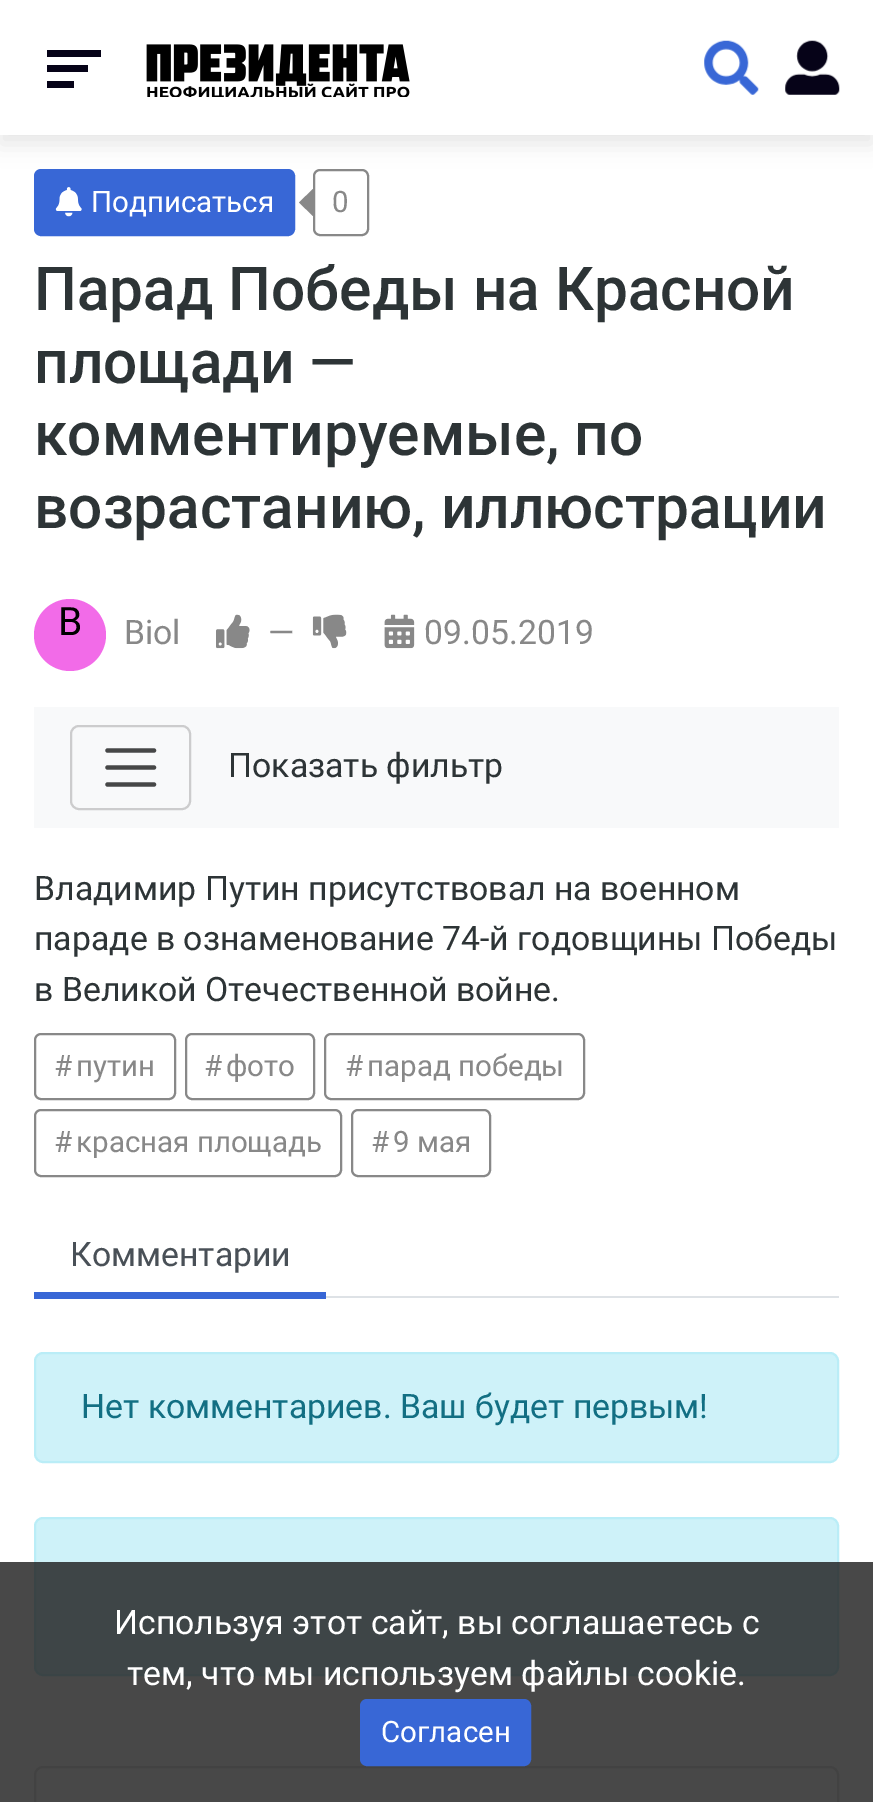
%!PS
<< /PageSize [873 1802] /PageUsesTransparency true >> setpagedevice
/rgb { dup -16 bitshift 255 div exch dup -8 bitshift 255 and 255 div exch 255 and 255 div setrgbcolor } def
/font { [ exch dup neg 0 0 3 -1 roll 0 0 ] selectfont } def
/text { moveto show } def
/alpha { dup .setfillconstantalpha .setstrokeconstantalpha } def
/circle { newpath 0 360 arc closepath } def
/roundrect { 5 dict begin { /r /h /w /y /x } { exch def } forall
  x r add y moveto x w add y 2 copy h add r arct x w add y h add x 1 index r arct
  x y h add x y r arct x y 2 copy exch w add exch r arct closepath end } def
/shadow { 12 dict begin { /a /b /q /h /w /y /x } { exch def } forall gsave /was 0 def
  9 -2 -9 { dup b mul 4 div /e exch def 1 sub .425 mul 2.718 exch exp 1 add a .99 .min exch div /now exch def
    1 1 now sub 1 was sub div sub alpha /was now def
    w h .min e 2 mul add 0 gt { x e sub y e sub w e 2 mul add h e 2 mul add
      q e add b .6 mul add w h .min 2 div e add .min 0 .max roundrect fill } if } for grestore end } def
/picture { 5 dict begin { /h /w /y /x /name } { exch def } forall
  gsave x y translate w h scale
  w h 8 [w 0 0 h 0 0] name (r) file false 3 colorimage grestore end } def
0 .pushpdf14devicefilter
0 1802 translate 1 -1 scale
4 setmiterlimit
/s1 { /Roboto-Regular 29.5 font 16#FFFFFF rgb } def
/s2 { /Roboto-Regular 29.5 font 16#888888 rgb } def
/s3 { /Roboto-Medium 60.4 font 16#2D3436 rgb } def
/s4 { /Roboto-Regular 39 font 16#000000 rgb } def
/s5 { /Roboto-Regular 33.75 font 16#888888 rgb } def
/s6 { /Roboto-Regular 33.75 font 16#2D3436 rgb } def
/s7 { /Roboto-Regular 33.75 font 16#495057 rgb } def
/s8 { /Roboto-Regular 33.75 font 16#126F83 rgb } def
/s9 { /Roboto-Regular 33.75 font 16#FFFFFF rgb } def
16#FFFFFF rgb
0 0 873 1802 rectfill
16#3867D6 rgb
35 170 259 65 6 roundrect gsave fill grestore
2 setlinewidth
stroke
16#888888 rgb
314 170 54 65 6 roundrect stroke
16#000000 rgb
0 9 873 135 0 11 0.1 shadow
16#FFFFFF rgb
0 0 873 135 rectfill
16#060318 rgb
47 50 54 7 rectfill
47 65 41 7 rectfill
47 81 27 7 rectfill
(pic1.raw) 146 44 264 53 picture
(pic2.raw) 704 40 55 55 picture
(pic3.raw) 785 40 55 55 picture
(pic4.raw) 55 187 27 30 picture
s1
(Подписаться) 91 212 text
16#888888 rgb
313 189 moveto 313 216 lineto 299 202.5 lineto closepath fill
(0) 332 212 text
s3
(Парад Победы на Красной) 34 310 text
(площади —) 34 383 text
(комментируемые, по) 34 455 text
(возрастанию, иллюстрации) 34 528 text
16#F26BE8 rgb
70 635 36 circle fill
s4
(B) 58 635 text
s5
(Biol) 124 644 text
(pic5.raw) 216 614 34 35 picture
(—) 268 644 text
(pic6.raw) 312 614 35 35 picture
(pic7.raw) 384 614 31 35 picture
(09.05.2019) 424 644 text
16#F8F9FA rgb
34 707 805 121 rectfill
16#CCCCCD rgb
71 726 119 83 8 roundrect stroke
16#464747 rgb
4.2 setlinewidth
1 setlinecap
107.5 750.5 moveto 154 750.5 lineto 107.5 767.5 moveto 154 767.5 lineto 107.5 784.5 moveto 154 784.5 lineto stroke
s6
(Показать фильтр) 228 777 text
(Владимир Путин присутствовал на военном) 34 900 text
(параде в ознаменование 74-й годовщины Победы) 34 950 text
(в Великой Отечественной войне.) 34 1001 text
16#888888 rgb
2 setlinewidth
0 setlinecap
35 1034 140 65 6 roundrect stroke
s2
(#) 54 1076 text
(путин) 76 1076 text
186 1034 128 65 6 roundrect stroke
(#) 204 1076 text
(фото) 226 1076 text
325 1034 259 65 6 roundrect stroke
(#) 345 1076 text
(парад победы) 367 1076 text
35 1110 306 66 6 roundrect stroke
(#) 54 1152 text
(красная площадь) 76 1152 text
352 1110 138 66 6 roundrect stroke
(#) 371 1152 text
(9 мая) 393 1152 text
16#DEE2E6 rgb
326 1296 513 2 rectfill
s7
(Комментарии) 70 1266 text
16#3867D6 rgb
34 1292 292 7 rectfill
16#CEF2F9 rgb
35 1353 803 109 8 roundrect gsave fill grestore
16#BAEDF7 rgb
stroke
s8
(Нет комментариев. Ваш будет первым!) 81 1418 text
16#CEF2F9 rgb
35 1518 803 157 8 roundrect gsave fill grestore
16#BAEDF7 rgb
stroke
16#E2E2E2 rgb
35 1767 803 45 8 roundrect stroke
0.8 alpha
16#1A1A1A rgb
0 1562 873 240 rectfill
1 alpha
s9
(Используя этот сайт, вы соглашаетесь с) 114 1634 text
(тем, что мы используем файлы cookie.) 127 1685 text
16#3867D6 rgb
361 1700 169 65 6 roundrect gsave fill grestore
stroke
s1
(Согласен) 381 1742 text
.poppdf14devicefilter showpage
